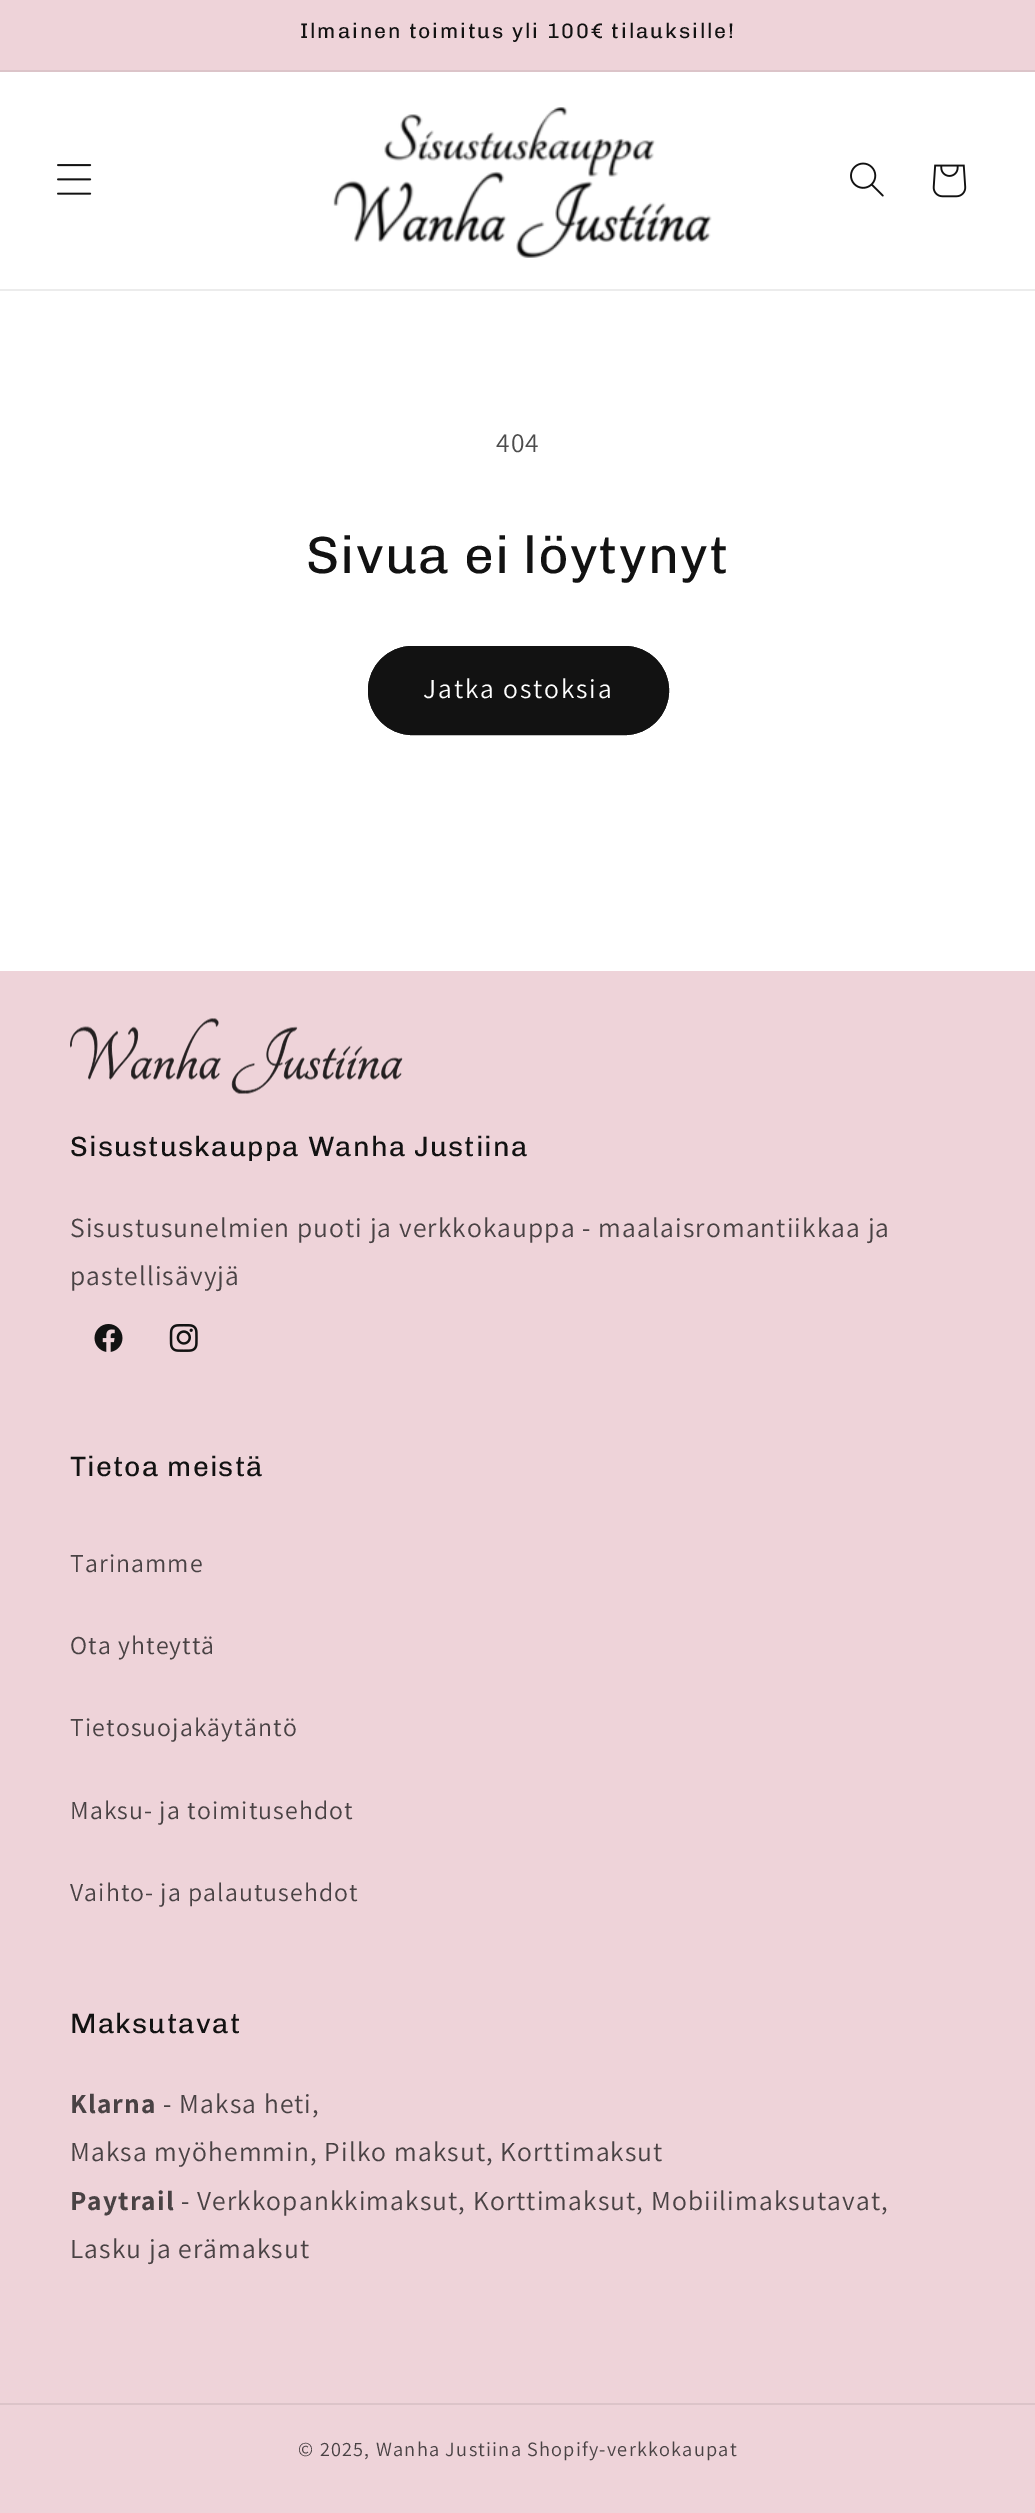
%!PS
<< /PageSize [1035 2513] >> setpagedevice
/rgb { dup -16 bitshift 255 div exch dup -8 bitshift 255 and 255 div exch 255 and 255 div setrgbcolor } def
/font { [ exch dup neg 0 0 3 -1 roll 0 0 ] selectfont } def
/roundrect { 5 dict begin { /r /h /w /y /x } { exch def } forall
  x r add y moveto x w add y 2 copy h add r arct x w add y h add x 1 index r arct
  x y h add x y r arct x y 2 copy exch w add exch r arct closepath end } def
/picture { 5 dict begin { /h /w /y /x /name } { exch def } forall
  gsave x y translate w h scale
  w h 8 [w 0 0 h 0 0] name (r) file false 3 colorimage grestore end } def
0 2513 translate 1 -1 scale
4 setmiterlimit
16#FFFFFF rgb
0 0 1035 2513 rectfill
16#EED3D9 rgb
0 0 1035 70 rectfill
16#DCC4C9 rgb
0 70 1035 2 rectfill
/Chivo-Regular 21 font
16#121212 rgb
300 38 moveto 1.85 0 (Ilmainen toimitus yli 100€ tilauksille!) ashow
16#ECECEC rgb
0 289 1035 2 rectfill
(pic1.raw) 57 164 35 31 picture
(pic2.raw) 333 107 379 151 picture
(pic3.raw) 850 162 34 35 picture
(pic4.raw) 932 164 35 34 picture
/Assistant-Regular 27.55 font
16#4D4D4D rgb
496 452 moveto 1.1 0 (404) ashow
/Chivo-Regular 52.5 font
16#121212 rgb
306 573 moveto 1.05 0 (Sivua ei löytynyt) ashow
368 646 301 89 44.5 roundrect fill
4 setlinewidth
370 648 297 85 42.5 roundrect stroke
/Assistant-Regular 27.55 font
16#FFFFFF rgb
423 698 moveto 1.85 0 (Jatka ostoksia) ashow
16#EED3D9 rgb
0 971 1035 1542 rectfill
(pic5.raw) 70 1018 333 76 picture
/Chivo-Regular 28 font
16#121212 rgb
70 1156 moveto 1.05 0 (Sisustuskauppa Wanha Justiina) ashow
/Assistant-Regular 27.55 font
16#494244 rgb
70 1237 moveto 1.1 0 (Sisustusunelmien puoti ja verkkokauppa - maalaisromantiikkaa ja) ashow
70 1285 moveto 1.1 0 (pastellisävyjä) ashow
(pic6.raw) 94 1324 29 28 picture
(pic7.raw) 169 1324 29 28 picture
/Chivo-Regular 28 font
16#121212 rgb
70 1476 moveto 1.05 0 (Tietoa meistä) ashow
/Assistant-Regular 25.75 font
16#494244 rgb
70 1572 moveto 1.1 0 (Tarinamme) ashow
70 1654 moveto 1.1 0 (Ota yhteyttä) ashow
70 1736 moveto 1.1 0 (Tietosuojakäytäntö) ashow
70 1819 moveto 1.1 0 (Maksu- ja toimitusehdot) ashow
70 1901 moveto 1.1 0 (Vaihto- ja palautusehdot) ashow
/Chivo-Regular 28 font
16#121212 rgb
70 2033 moveto 1.05 0 (Maksutavat) ashow
/Assistant-Bold 27.55 font
16#494244 rgb
70 2113 moveto 1.1 0 (Klarna) ashow
/Assistant-Regular 27.55 font
163 2113 moveto 1.1 0 (- Maksa heti,) ashow
70 2161 moveto 1.1 0 (Maksa myöhemmin, Pilko maksut, Korttimaksut) ashow
/Assistant-Bold 27.55 font
70 2210 moveto 1.1 0 (Paytrail) ashow
/Assistant-Regular 27.55 font
181 2210 moveto 1.1 0 (- Verkkopankkimaksut, Korttimaksut, Mobiilimaksutavat,) ashow
70 2258 moveto 1.1 0 (Lasku ja erämaksut) ashow
16#DCC4C9 rgb
0 2403 1035 2 rectfill
/Assistant-Regular 20.25 font
16#494244 rgb
298 2456 moveto 1.25 0 (© 2025, Wanha Justiina) ashow
527 2456 moveto 1.25 0 (Shopify-verkkokaupat) ashow
showpage
